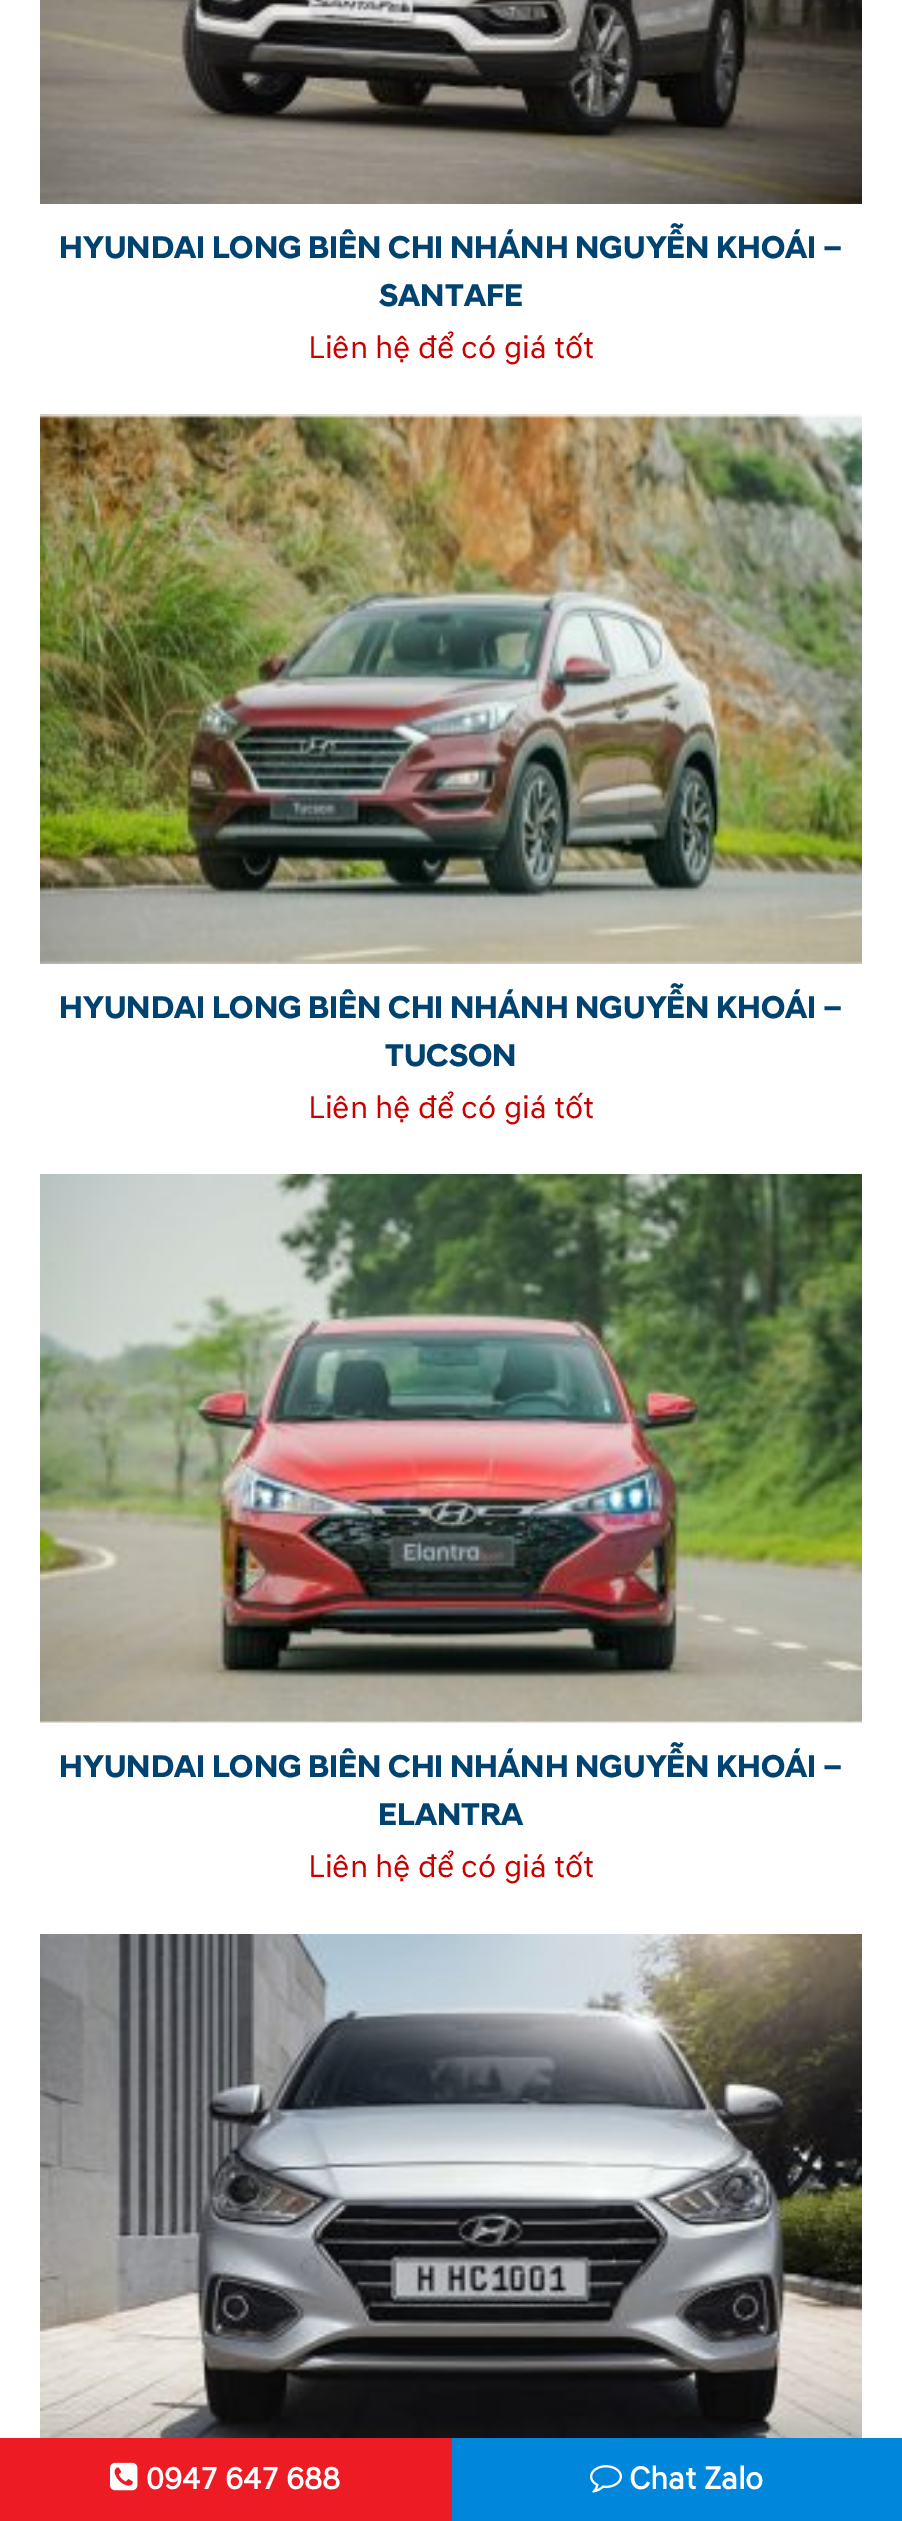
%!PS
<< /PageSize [902 2521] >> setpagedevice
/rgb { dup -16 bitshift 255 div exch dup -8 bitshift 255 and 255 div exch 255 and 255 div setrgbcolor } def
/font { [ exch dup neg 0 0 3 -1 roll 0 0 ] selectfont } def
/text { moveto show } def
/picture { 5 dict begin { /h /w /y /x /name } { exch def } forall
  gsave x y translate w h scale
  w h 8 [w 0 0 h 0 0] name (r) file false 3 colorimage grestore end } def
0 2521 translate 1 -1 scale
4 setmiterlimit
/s1 { /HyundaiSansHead-Bold 32 font 16#004370 rgb } def
/s2 { /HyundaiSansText-Regular 32 font 16#C90000 rgb } def
/s3 { /HyundaiSansText-Bold 32 font 16#FFFFFF rgb } def
16#FFFFFF rgb
0 0 902 2521 rectfill
(pic1.raw) 40 0 822 204 picture
s1
(HYUNDAI LONG BIÊN CHI NHÁNH NGUYỄN KHOÁI –) 59 258 text
(SANTAFE) 379 306 text
s2
(Liên hệ để có giá tốt) 308 358 text
(pic2.raw) 40 414 822 550 picture
s1
(HYUNDAI LONG BIÊN CHI NHÁNH NGUYỄN KHOÁI –) 59 1018 text
(TUCSON) 385 1066 text
s2
(Liên hệ để có giá tốt) 308 1118 text
(pic3.raw) 40 1174 822 549 picture
s1
(HYUNDAI LONG BIÊN CHI NHÁNH NGUYỄN KHOÁI –) 59 1777 text
(ELANTRA) 378 1825 text
s2
(Liên hệ để có giá tốt) 308 1877 text
(pic4.raw) 40 1934 822 504 picture
16#ED1C24 rgb
0 2438 452 83 rectfill
(pic5.raw) 110 2462 28 29 picture
s3
(0947 647 688) 146 2489 text
16#0086DA rgb
452 2438 450 83 rectfill
(pic6.raw) 590 2465 32 28 picture
s3
(Chat Zalo) 629 2489 text
showpage
